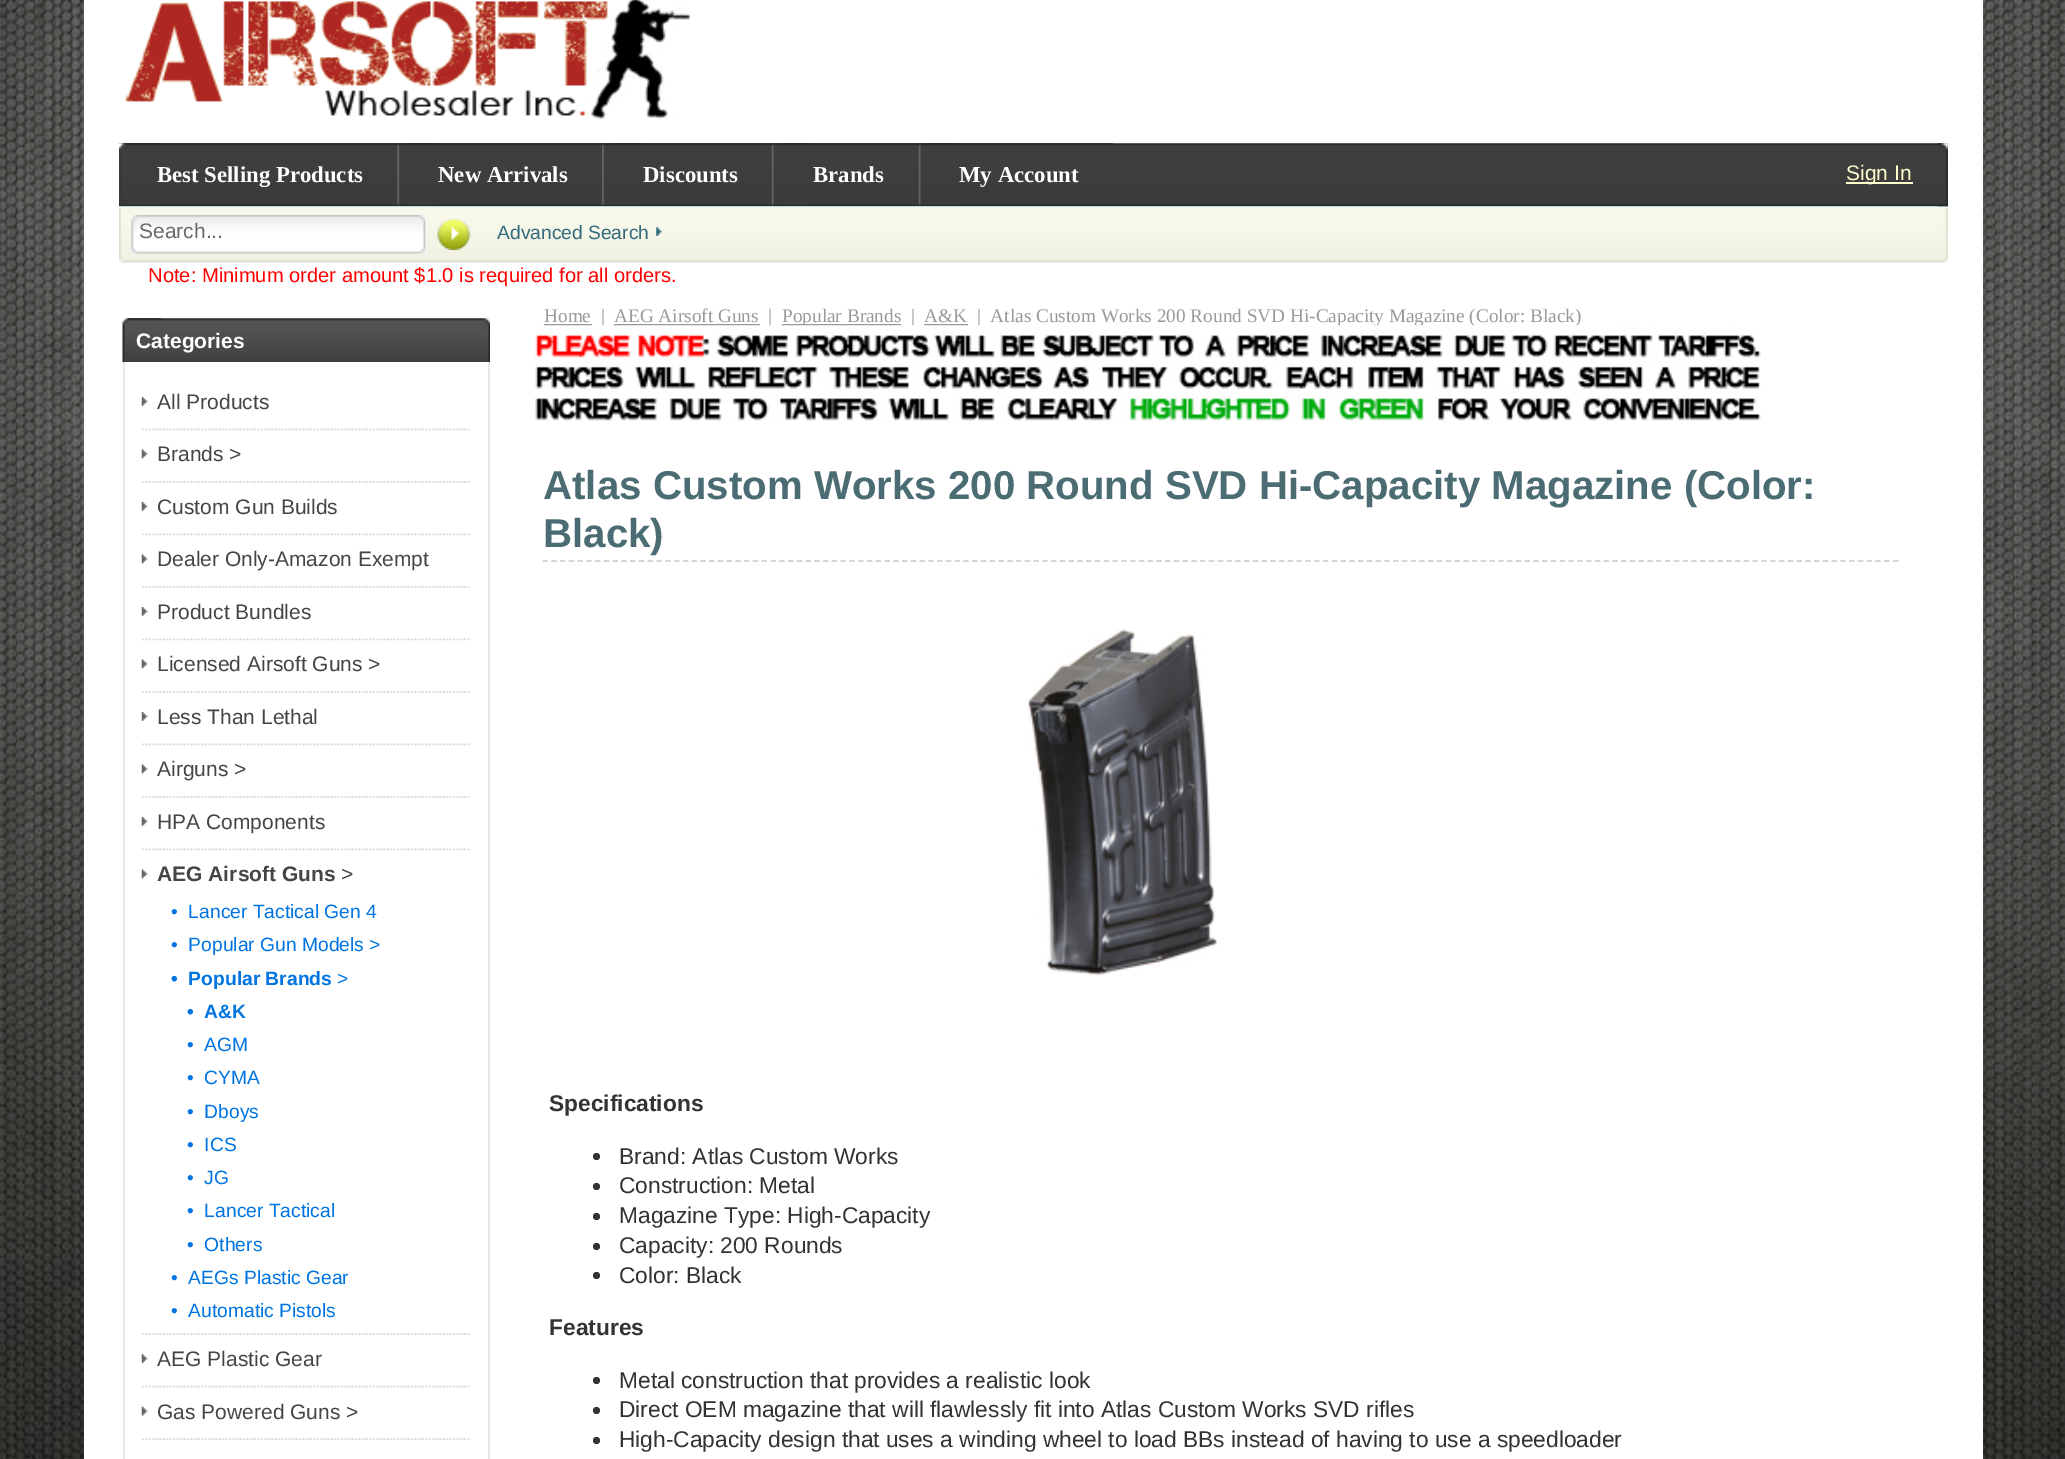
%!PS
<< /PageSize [2065 1459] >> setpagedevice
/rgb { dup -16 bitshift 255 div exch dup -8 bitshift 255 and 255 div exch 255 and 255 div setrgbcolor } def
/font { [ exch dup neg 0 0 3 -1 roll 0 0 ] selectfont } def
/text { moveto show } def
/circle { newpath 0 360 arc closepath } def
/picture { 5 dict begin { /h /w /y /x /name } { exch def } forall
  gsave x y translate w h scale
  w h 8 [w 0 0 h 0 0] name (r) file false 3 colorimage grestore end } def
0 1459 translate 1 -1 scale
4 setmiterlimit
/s1 { /LiberationSerif-Bold 22.75 font 16#FFFFFF rgb } def
/s2 { /LiberationSans-Regular 21 font 16#FFFECF rgb } def
/s3 { /LiberationSans-Regular 21 font 16#696969 rgb } def
/s4 { /LiberationSans-Regular 19.25 font 16#336B7D rgb } def
/s5 { /LiberationSans-Regular 20.15 font 16#FF0000 rgb } def
/s6 { /LiberationSans-Bold 21 font 16#FFFFFF rgb } def
/s7 { /LiberationSans-Regular 21 font 16#454545 rgb } def
/s8 { /LiberationSans-Bold 21 font 16#454545 rgb } def
/s9 { /LiberationSans-Regular 19.25 font 16#0075E2 rgb } def
/s10 { /LiberationSans-Bold 19.25 font 16#0075E2 rgb } def
/s11 { /LiberationSerif-Regular 19.25 font 16#999999 rgb } def
/s12 { /LiberationSans-Bold 40.25 font 16#4C6C74 rgb } def
/s13 { /LiberationSans-Bold 22.75 font 16#333333 rgb } def
/s14 { /LiberationSans-Regular 22.75 font 16#333333 rgb } def
16#FFFFFF rgb
0 0 2065 1459 rectfill
(pic1.raw) 0 0 2065 1459 picture
84 0 1899 1459 rectfill
(pic2.raw) 125 0 565 120 picture
(pic3.raw) 119 143 1829 64 picture
(pic4.raw) 119 143 41 62 picture
(pic5.raw) 119 143 279 62 picture
s1
(Best Selling Products) 157 182 text
(pic6.raw) 397 143 39 62 picture
(pic7.raw) 406 143 196 62 picture
(New Arrivals) 438 182 text
(pic8.raw) 602 143 39 62 picture
(pic9.raw) 611 143 161 62 picture
(Discounts) 643 182 text
(pic10.raw) 771 143 40 62 picture
(pic11.raw) 780 143 139 62 picture
(Brands) 813 182 text
(pic10.raw) 918 143 40 62 picture
(pic12.raw) 927 143 186 62 picture
(My Account) 959 182 text
16#EDF9FD rgb
119 207 1829 56 rectfill
(pic14.raw) 119 206 1829 57 picture
(pic13.raw) 1937 143 11 64 picture
16#FFFECF rgb
1846 182 67 2 rectfill
s2
(Sign In) 1846 180 text
(pic15.raw) 119 208 11 55 picture
(pic16.raw) 131 215 295 39 picture
s3
(Search...) 139 238 text
(pic17.raw) 437 218 34 32 picture
s4
(Advanced Search) 497 239 text
(pic18.raw) 656 227 6 9 picture
s5
(Note: Minimum order amount $1.0 is required for all orders.) 148 282 text
(pic19.raw) 1939 208 9 55 picture
(pic20.raw) 122 318 39 44 picture
(pic21.raw) 127 318 363 44 picture
s6
(Categories) 136 348 text
16#E6E6E6 rgb
488 362 2 1097 rectfill
123 362 2 1097 rectfill
(pic22.raw) 141 397 7 9 picture
s7
(All Products) 157 409 text
(pic23.raw) 142 428 329 3 picture
(pic24.raw) 141 449 7 10 picture
(Brands >) 157 461 text
(pic25.raw) 142 481 329 2 picture
(pic22.raw) 141 502 7 9 picture
(Custom Gun Builds) 157 514 text
(pic23.raw) 142 533 329 3 picture
(pic24.raw) 141 554 7 10 picture
(Dealer Only-Amazon Exempt) 157 566 text
(pic25.raw) 142 586 329 2 picture
(pic22.raw) 141 607 7 9 picture
(Product Bundles) 157 619 text
(pic23.raw) 142 638 329 3 picture
(pic24.raw) 141 659 7 10 picture
(Licensed Airsoft Guns >) 157 671 text
(pic25.raw) 142 691 329 2 picture
(pic22.raw) 141 712 7 9 picture
(Less Than Lethal) 157 724 text
(pic23.raw) 142 743 329 3 picture
(pic24.raw) 141 764 7 10 picture
(Airguns >) 157 776 text
(pic25.raw) 142 796 329 2 picture
(pic22.raw) 141 817 7 9 picture
(HPA Components) 157 829 text
(pic23.raw) 142 848 329 3 picture
(pic24.raw) 141 869 7 10 picture
s8
(AEG Airsoft Guns) 157 881 text
s7
(>) 341 881 text
s9
(•  Lancer Tactical Gen 4) 171 918 text
(•  Popular Gun Models >) 171 951 text
s10
(•  Popular Brands) 171 985 text
s9
(>) 337 985 text
s10
(•  A&K) 187 1018 text
s9
(•  AGM) 187 1051 text
(•  CYMA) 187 1084 text
(•  Dboys) 187 1118 text
(•  ICS) 187 1151 text
(•  JG) 187 1184 text
(•  Lancer Tactical) 187 1217 text
(•  Others) 187 1251 text
(•  AEGs Plastic Gear) 171 1284 text
(•  Automatic Pistols) 171 1317 text
(pic26.raw) 142 1333 329 2 picture
(pic27.raw) 141 1354 7 9 picture
s7
(AEG Plastic Gear) 157 1366 text
(pic28.raw) 142 1385 329 3 picture
(pic29.raw) 141 1406 7 10 picture
(Gas Powered Guns >) 157 1419 text
(pic26.raw) 142 1438 329 2 picture
s11
(Home) 544 322 text
544 324 48 2 rectfill
(|) 601 322 text
(AEG Airsoft Guns) 614 322 text
614 324 146 2 rectfill
(|) 768 322 text
782 324 119 2 rectfill
(Popular Brands) 782 322 text
(|) 911 322 text
(A&K) 924 322 text
924 324 44 2 rectfill
(|  Atlas Custom Works 200 Round SVD Hi-Capacity Magazine \(Color: Black\)) 977 322 text
(pic30.raw) 535 325 1226 98 picture
16#D5D5D5 rgb
1.8 setlinewidth
[5.25 3.52] 0 setdash
542.5 561 moveto 1899 561 lineto stroke
s12
(Atlas Custom Works 200 Round SVD Hi-Capacity Magazine \(Color:) 543 499 text
(Black\)) 543 547 text
(pic31.raw) 1028 629 189 346 picture
s13
(Specifications) 549 1111 text
596.5 1156.5 3.5 circle fill
s14
(Brand: Atlas Custom Works) 619 1164 text
596.5 1186.5 3.5 circle fill
(Construction: Metal) 619 1193 text
596.5 1216.5 3.5 circle fill
(Magazine Type: High-Capacity) 619 1223 text
596.5 1246.5 3.5 circle fill
(Capacity: 200 Rounds) 619 1253 text
596.5 1275.5 3.5 circle fill
(Color: Black) 619 1283 text
s13
(Features) 549 1335 text
596.5 1380.5 3.5 circle fill
s14
(Metal construction that provides a realistic look) 619 1388 text
596.5 1410.5 3.5 circle fill
(Direct OEM magazine that will flawlessly fit into Atlas Custom Works SVD rifles) 619 1417 text
596.5 1440.5 3.5 circle fill
(High-Capacity design that uses a winding wheel to load BBs instead of having to use a speedloader) 619 1447 text
showpage
